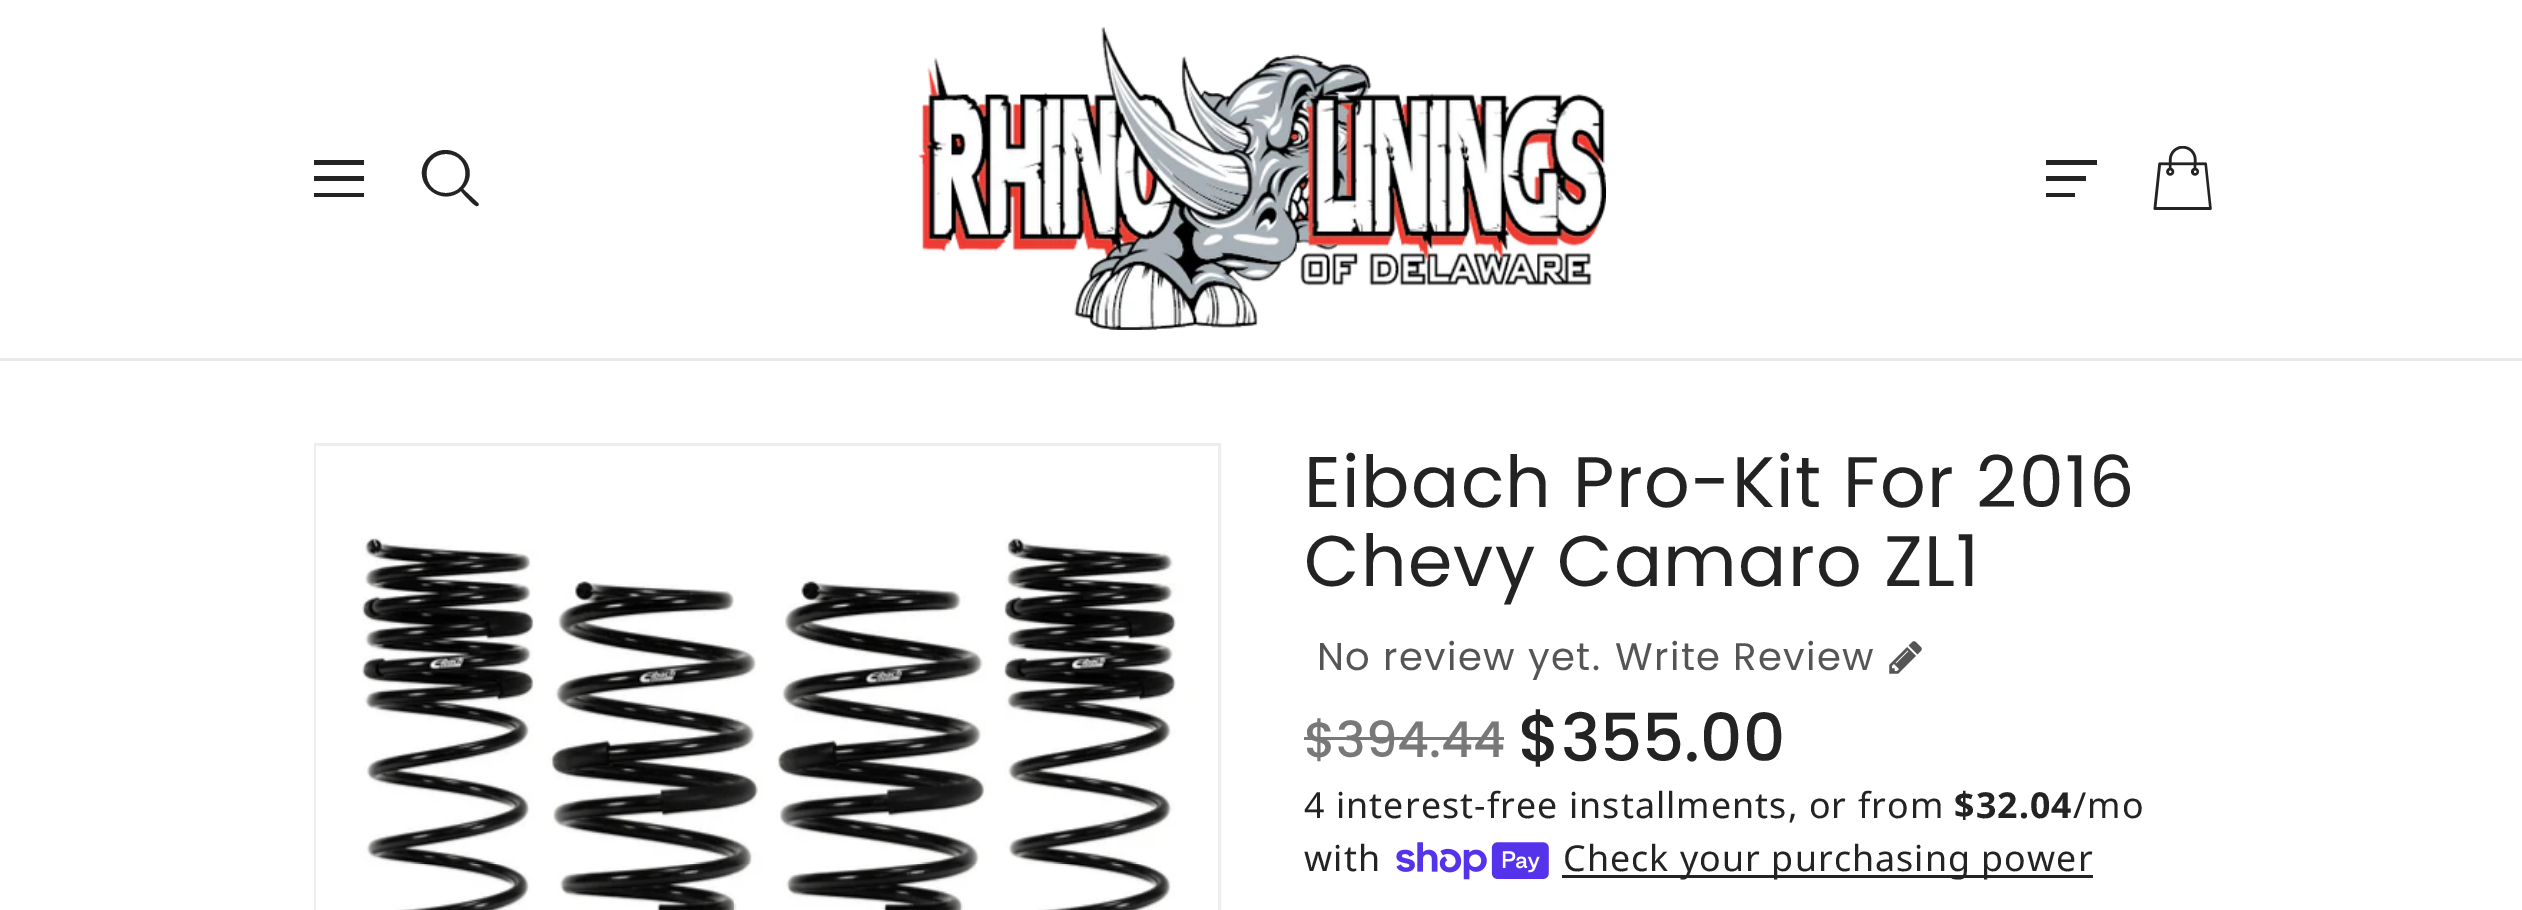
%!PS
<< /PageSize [2522 910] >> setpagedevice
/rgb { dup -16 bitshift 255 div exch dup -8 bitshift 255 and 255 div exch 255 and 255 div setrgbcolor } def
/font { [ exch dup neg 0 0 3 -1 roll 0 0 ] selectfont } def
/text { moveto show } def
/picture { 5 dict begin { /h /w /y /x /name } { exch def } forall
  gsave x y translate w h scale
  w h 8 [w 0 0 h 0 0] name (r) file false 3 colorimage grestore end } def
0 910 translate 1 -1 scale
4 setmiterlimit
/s1 { /Poppins-Medium 49.5 font 16#787878 rgb } def
/s2 { /Poppins-Medium 66 font 16#232323 rgb } def
16#FFFFFF rgb
0 0 2522 910 rectfill
16#E9E9E9 rgb
0 358 2522 3 rectfill
16#232323 rgb
314 160 50 5 rectfill
314 176 50 5 rectfill
314 193 50 4 rectfill
478 203 moveto 463 189 lineto 484 167 451 136 429 157 curveto 408 178 438 209 461 191 curveto 463 194 475 207 477 206 curveto 479 206 479 204 478 203 curveto closepath 446 193 moveto 420 193 420 154 446 154 curveto 472 154 472 193 446 193 curveto closepath eofill
(pic1.raw) 918 27 688 303 picture
2046 160 51 5 rectfill
2046 176 40 5 rectfill
2046 193 29 4 rectfill
(pic2.raw) 2153 146 59 64 picture
16#EEEEEE rgb
3 setlinewidth
315.5 444.5 904 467 rectstroke
(pic3.raw) 316 446 902 464 picture
/Poppins-Regular 71.5 font
16#232323 rgb
1304 507 moveto 1.4 0 (Eibach Pro-Kit For 2016) ashow
1304 586 moveto 1.4 0 (Chevy Camaro ZL1) ashow
/Poppins-Regular 38.5 font
16#555555 rgb
1317 670 moveto 1.4 0 (No review yet.) ashow
1615 670 moveto 1.4 0 (Write Review) ashow
(pic4.raw) 1889 641 33 33 picture
s1
($394.44) 1304 757 text
1304 737 200 3 rectfill
s2
($355.00) 1518 761 text
/NotoSans-Regular 35.75 font
1304 818 moveto 1.1 0 (4 interest-free installments, or from) ashow
/NotoSans-Bold 35.75 font
1954 818 moveto 1.1 0 ($32.04) ashow
/NotoSans-Regular 35.75 font
2073 818 moveto 1.1 0 (/mo) ashow
1304 871 moveto 1.1 0 (with) ashow
(pic5.raw) 1396 842 153 38 picture
1562 875 531 3 rectfill
1563 871 moveto 1.1 0 (Check your purchasing power) ashow
showpage
